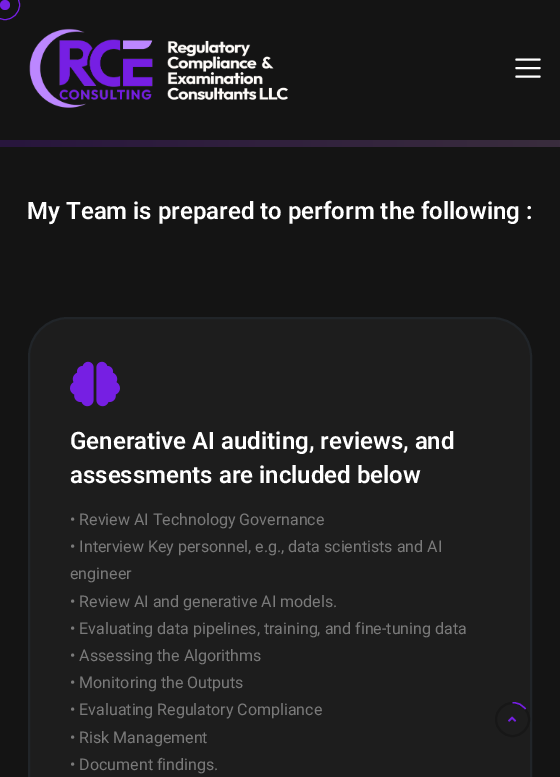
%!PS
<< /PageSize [560 777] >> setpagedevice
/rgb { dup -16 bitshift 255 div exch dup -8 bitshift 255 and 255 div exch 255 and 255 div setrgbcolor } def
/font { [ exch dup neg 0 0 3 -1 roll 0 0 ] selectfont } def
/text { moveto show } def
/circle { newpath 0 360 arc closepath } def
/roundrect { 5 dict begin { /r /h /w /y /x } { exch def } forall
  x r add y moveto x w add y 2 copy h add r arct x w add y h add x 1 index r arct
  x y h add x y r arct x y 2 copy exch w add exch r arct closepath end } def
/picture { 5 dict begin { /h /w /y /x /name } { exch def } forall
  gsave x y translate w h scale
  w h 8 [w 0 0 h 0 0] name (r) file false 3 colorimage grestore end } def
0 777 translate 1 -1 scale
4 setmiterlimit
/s1 { /Roboto-SemiBold 24 font 16#FFFFFF rgb } def
/s2 { /Roboto-Regular 16 font 16#7A7A7A rgb } def
16#141414 rgb
0 0 560 777 rectfill
16#761FE3 rgb
5 5 5 circle fill
5 5 14.5 circle stroke
(pic1.raw) 29 28 259 80 picture
16#FFFFFF rgb
2.1 setlinewidth
1 setlinecap
1 setlinejoin
516.5 59.5 moveto 539.5 59.5 lineto 516.5 68 moveto 539.5 68 lineto 516.5 76.5 moveto 539.5 76.5 lineto stroke
gsave 0 140 moveto 560 140 lineto 560 147 lineto 0 147 lineto closepath clip newpath
<< /ShadingType 2 /ColorSpace /DeviceRGB /Coords [0 4.5 560 4.5] /Extend [true true] /Function << /FunctionType 2 /Domain [0 1] /C0 [0.157 0.086 0.239] /C1 [0.227 0.176 0.243] /N 1 >> >> shfill grestore
s1
(My Team is prepared to perform the following :) 27 219 text
16#1D1D1D rgb
29 318 502 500 39 roundrect gsave fill grestore
16#212529 rgb
2 setlinewidth
0 setlinecap
0 setlinejoin
stroke
(pic2.raw) 70 361 50 46 picture
s1
(Generative AI auditing, reviews, and) 70 449 text
(assessments are included below) 70 483 text
s2
(• Review AI Technology Governance) 70 525 text
(• Interview Key personnel, e.g., data scientists and AI) 70 552 text
(engineer) 70 579 text
(• Review AI and generative AI models.) 70 607 text
(• Evaluating data pipelines, training, and fine-tuning data) 70 634 text
(• Assessing the Algorithms) 70 661 text
(• Monitoring the Outputs) 70 688 text
(• Evaluating Regulatory Compliance) 70 715 text
(• Risk Management) 70 743 text
(• Document findings.) 70 770 text
16#171717 rgb
512.5 719.5 16.5 circle stroke
gsave
495 702 35 35 rectclip
16#761FE3 rgb
1.4 setlinewidth
512.5 702.5 moveto 518 702.5 522.5 705 525.5 709 curveto stroke
grestore
(pic3.raw) 508 716 9 6 picture
showpage
